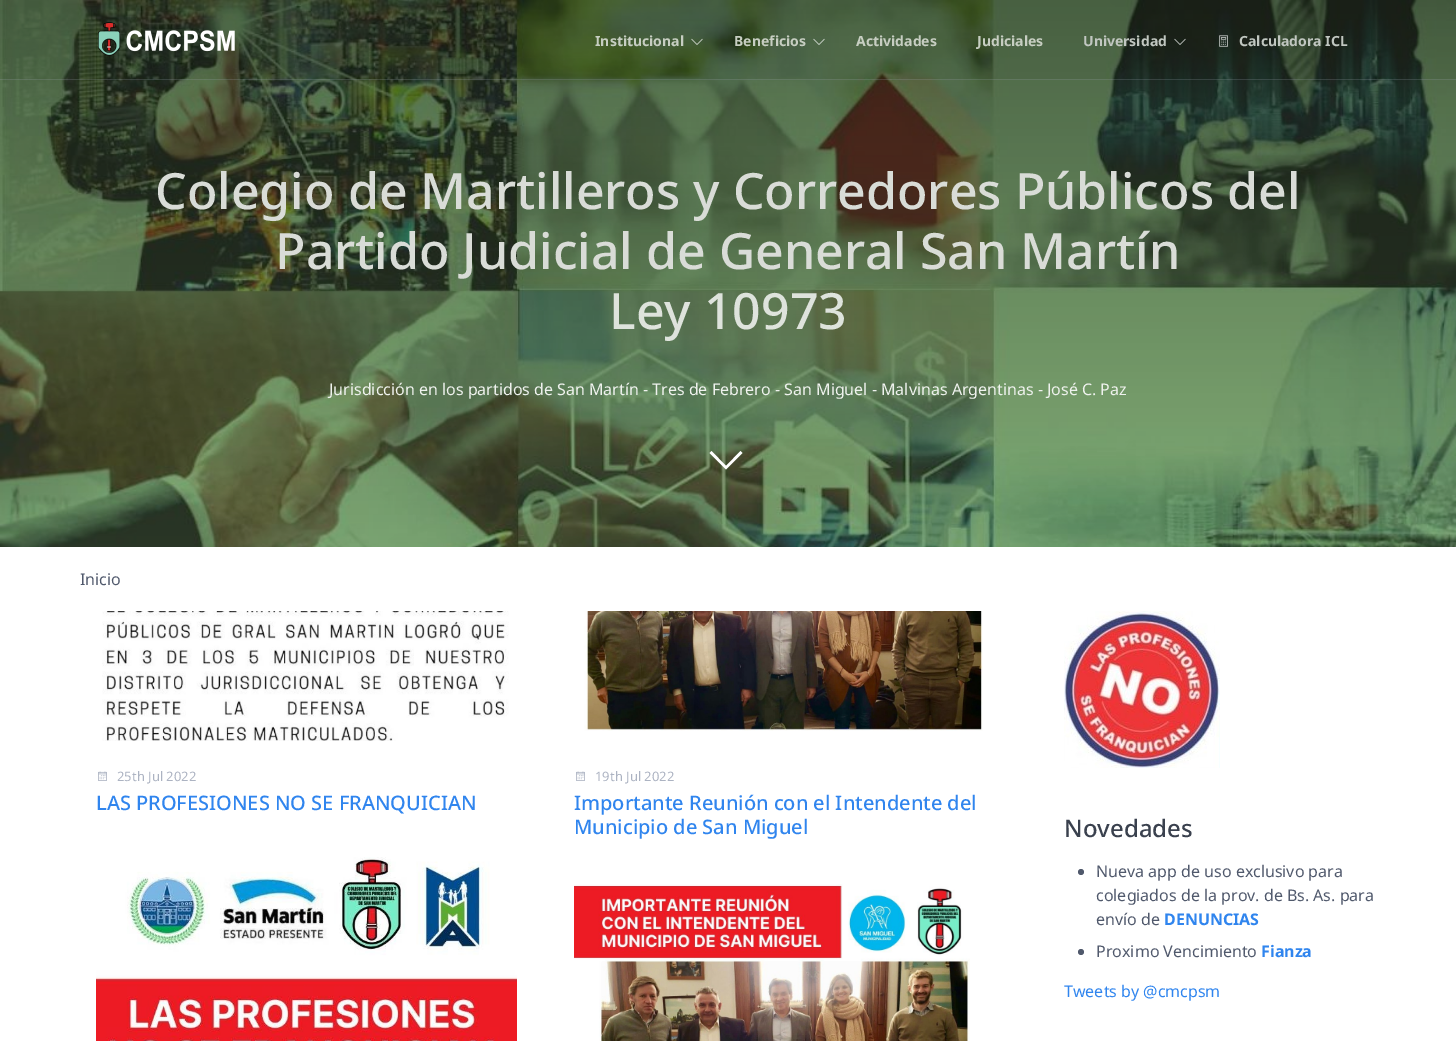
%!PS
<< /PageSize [1456 1041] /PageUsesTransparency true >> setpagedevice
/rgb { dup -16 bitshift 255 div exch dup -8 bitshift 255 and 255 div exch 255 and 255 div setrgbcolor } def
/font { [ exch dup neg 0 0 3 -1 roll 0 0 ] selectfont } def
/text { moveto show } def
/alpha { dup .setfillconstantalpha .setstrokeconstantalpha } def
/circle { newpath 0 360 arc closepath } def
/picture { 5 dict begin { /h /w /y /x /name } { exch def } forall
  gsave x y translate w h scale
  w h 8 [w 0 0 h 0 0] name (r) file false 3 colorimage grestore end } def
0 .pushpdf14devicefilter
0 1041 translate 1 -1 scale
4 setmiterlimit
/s1 { /NotoSans-Bold 14 font 16#C7CEC2 rgb } def
/s2 { /NotoSans-Bold 14 font 16#C1C7C1 rgb } def
/s3 { /NotoSans-Medium 50 font 16#D9DCD7 rgb } def
/s4 { /NotoSans-Medium 50 font 16#DEE3DC rgb } def
/s5 { /NotoSans-Regular 16 font 16#EFF2EE rgb } def
/s6 { /NotoSans-Regular 16 font 16#50596C rgb } def
/s7 { /NotoSans-Regular 13 font 16#ACB3C2 rgb } def
/s8 { /NotoSans-Medium 20 font 16#3085EE rgb } def
/s9 { /NotoSans-Medium 24 font 16#3A414E rgb } def
/s10 { /NotoSans-Bold 16 font 16#3085EE rgb } def
/s11 { /NotoSans-Regular 16 font 16#3085EE rgb } def
16#FFFFFF rgb
0 0 1456 1041 rectfill
(pic6.raw) 0 0 1456 547 picture
0.05 alpha
16#000000 rgb
0 0 1456 80 rectfill
0.2 alpha
16#ACB3C2 rgb
0 79 1456 1 rectfill
1 alpha
(pic1.raw) 98 22 137 34 picture
s1
(Institucional) 595 46 text
(pic2.raw) 691 38 12 7 picture
(Beneficios) 734 46 text
(pic3.raw) 813 38 12 7 picture
(Actividades) 856 46 text
(Judiciales) 977 46 text
s2
(Universidad) 1083 46 text
(pic4.raw) 1174 38 12 7 picture
(pic5.raw) 1219 35 9 12 picture
(Calculadora ICL) 1239 46 text
s3
(Colegio de Martilleros y Corredores Públicos del) 155 209 text
(Partido Judicial de General San Martín) 275 269 text
s4
(Ley 10973) 609 329 text
s5
(Jurisdicción en los partidos de San Martín - Tres de Febrero - San Miguel - Malvinas Argentinas - José C. Paz) 329 395 text
16#FFFFFF rgb
711.5 451 moveto 726 466 lineto 740.5 451 lineto 742.5 453 lineto 726 469.5 lineto 709.5 453 lineto closepath fill
s6
(Inicio) 80 585 text
(pic7.raw) 102 611 407 130 picture
(pic8.raw) 98 771 9 10 picture
s7
(25th Jul 2022) 117 781 text
s8
(LAS PROFESIONES NO SE FRANQUICIAN) 96 810 text
(pic9.raw) 96 857 421 184 picture
(pic10.raw) 584 611 399 120 picture
(pic11.raw) 576 771 9 10 picture
s7
(19th Jul 2022) 595 781 text
s8
(Importante Reunión con el Intendente del) 574 810 text
(Municipio de San Miguel) 574 834 text
(pic12.raw) 574 884 396 157 picture
(pic13.raw) 1064 611 156 157 picture
s9
(Novedades) 1064 837 text
16#50596C rgb
1081 872 3 circle fill
s6
(Nueva app de uso exclusivo para) 1096 877 text
(colegiados de la prov. de Bs. As. para) 1096 901 text
(envío de) 1096 925 text
s10
(DENUNCIAS) 1164 925 text
16#50596C rgb
1081 952 3 circle fill
s6
(Proximo Vencimiento) 1096 957 text
s10
(Fianza) 1261 957 text
s11
(Tweets by @cmcpsm) 1064 997 text
.poppdf14devicefilter showpage
